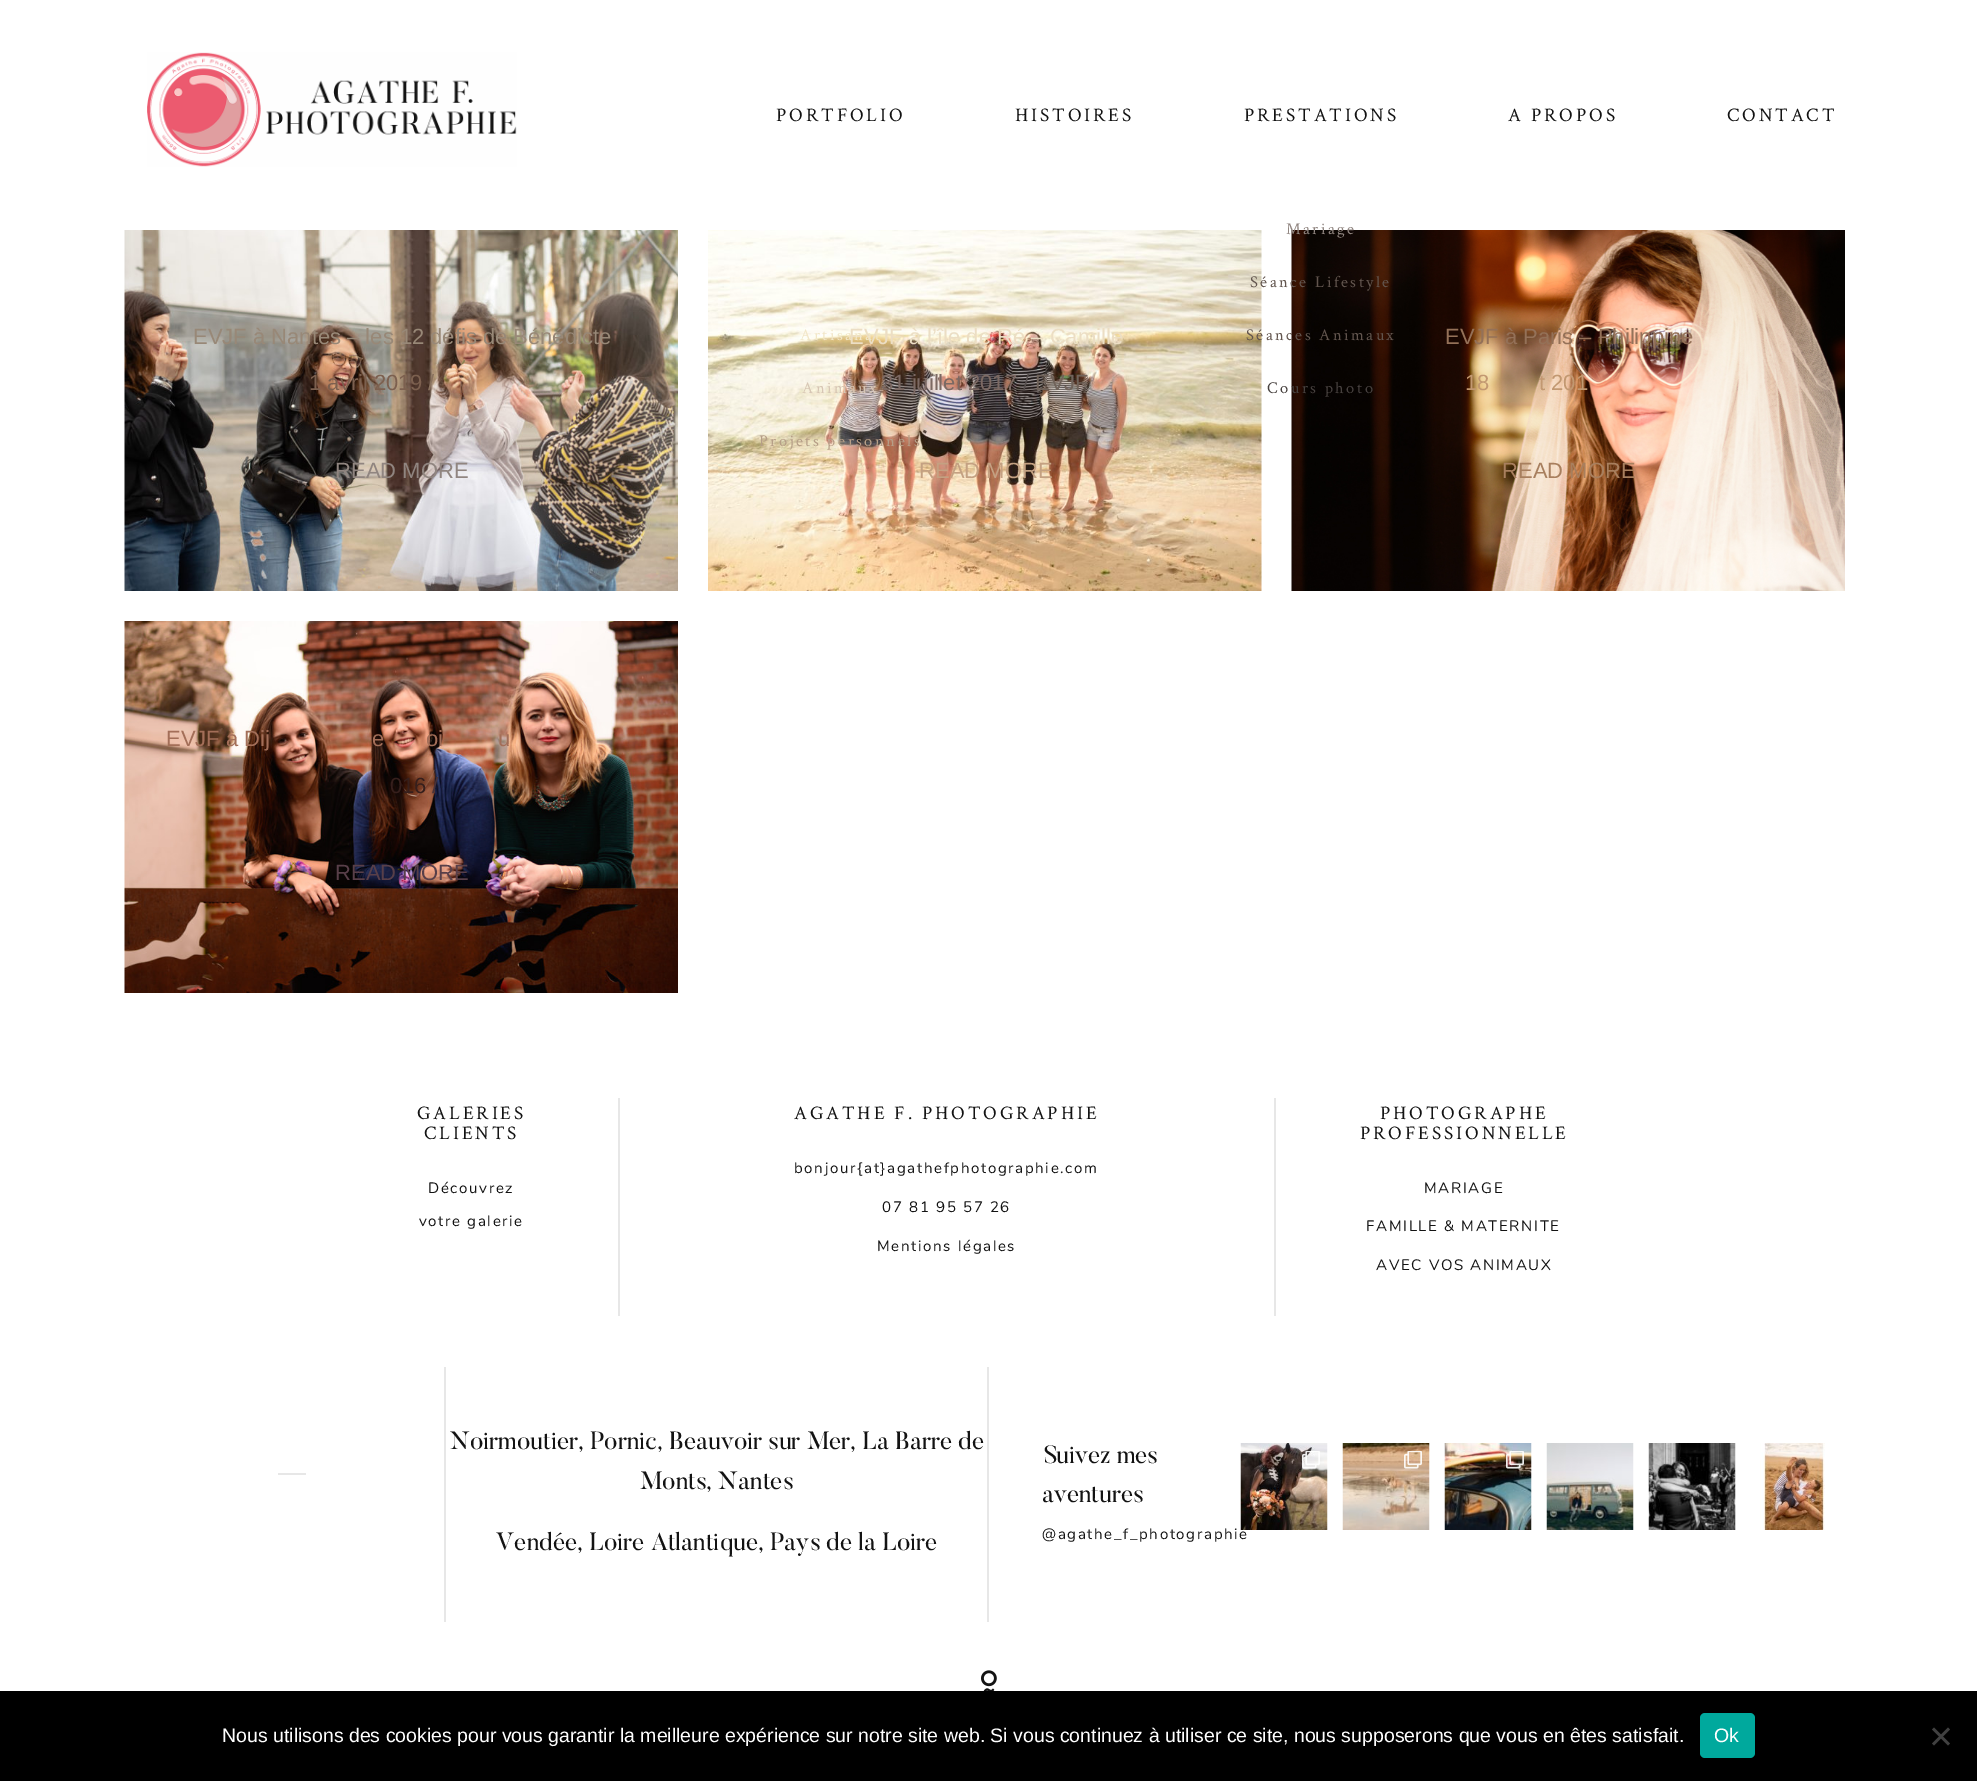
%!PS
<< /PageSize [1977 1781] >> setpagedevice
/rgb { dup -16 bitshift 255 div exch dup -8 bitshift 255 and 255 div exch 255 and 255 div setrgbcolor } def
/font { [ exch dup neg 0 0 3 -1 roll 0 0 ] selectfont } def
/text { moveto show } def
/roundrect { 5 dict begin { /r /h /w /y /x } { exch def } forall
  x r add y moveto x w add y 2 copy h add r arct x w add y h add x 1 index r arct
  x y h add x y r arct x y 2 copy exch w add exch r arct closepath end } def
/picture { 5 dict begin { /h /w /y /x /name } { exch def } forall
  gsave x y translate w h scale
  w h 8 [w 0 0 h 0 0] name (r) file false 3 colorimage grestore end } def
0 1781 translate 1 -1 scale
4 setmiterlimit
/s1 { /LiberationSans-Regular 22 font 16#ECDEC4 rgb } def
/s2 { /LiberationSans-Regular 22 font 16#988877 rgb } def
/s3 { /LiberationSans-Regular 22 font 16#7C604F rgb } def
/s4 { /LiberationSans-Regular 22 font 16#89725E rgb } def
/s5 { /LiberationSans-Regular 22 font 16#908580 rgb } def
/s6 { /LiberationSans-Regular 22 font 16#7C6963 rgb } def
/s7 { /LiberationSans-Regular 22 font 16#554E4D rgb } def
/s8 { /LiberationSans-Regular 22 font 16#70635A rgb } def
/s9 { /LiberationSans-Regular 22 font 16#C4A182 rgb } def
/s10 { /LiberationSans-Regular 22 font 16#947158 rgb } def
/s11 { /LiberationSans-Regular 22 font 16#C29871 rgb } def
/s12 { /LiberationSans-Regular 22 font 16#A87F5E rgb } def
/s13 { /LiberationSans-Regular 22 font 16#A36E58 rgb } def
/s14 { /LiberationSans-Regular 22 font 16#361F1C rgb } def
/s15 { /LiberationSans-Regular 22 font 16#483239 rgb } def
/s16 { /LiberationSans-Regular 22 font 16#583F49 rgb } def
/s17 { /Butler-Regular 24.75 font 16#131313 rgb } def
/s18 { /LiberationSans-Regular 19.5 font 16#FFFFFF rgb } def
16#FFFFFF rgb
0 0 1977 1781 rectfill
(pic1.raw) 147 52 370 115 picture
/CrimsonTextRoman-Regular 19.25 font
16#131313 rgb
776 121 moveto 2.9 0 (PORTFOLIO) ashow
(pic3.raw) 708 230 554 361 picture
s1
(EVJF à l’île de Ré – Camille) 849 344 text
/CrimsonTextRoman-Regular 16.5 font
16#F2E7C8 rgb
800 340 moveto 2.5 0 (Artisanat) ashow
16#D7C6B4 rgb
802 393 moveto 2.5 0 (Animaux) ashow
16#B69E87 rgb
759 446 moveto 2.5 0 (Projets personnels) ashow
/CrimsonTextRoman-Regular 19.25 font
16#131313 rgb
1015 121 moveto 2.9 0 (HISTOIRES) ashow
1244 121 moveto 2.9 0 (PRESTATIONS) ashow
(pic4.raw) 1291 230 554 361 picture
/CrimsonTextRoman-Regular 16.5 font
16#908580 rgb
1286 234 moveto 2.5 0 (Mariage) ashow
16#62554E rgb
1250 287 moveto 2.5 0 (Séance Lifestyle) ashow
1246 340 moveto 2.5 0 (Séances Animaux) ashow
16#46403E rgb
1267 393 moveto 2.5 0 (Cours photo) ashow
/CrimsonTextRoman-Regular 19.25 font
16#131313 rgb
1508 121 moveto 2.9 0 (A PROPOS) ashow
1727 121 moveto 2.9 0 (CONTACT) ashow
(pic2.raw) 124 230 554 361 picture
s2
(EVJF à Nantes – les 12 défis de Bénédicte) 193 344 text
s3
(1 avril 2019) 309 390 text
s4
(/) 428 390 text
s5
(READ MORE) 335 478 text
s6
(31 juillet 2017) 881 390 text
s7
(/) 1023 390 text
s8
(EVJF) 1035 390 text
s9
(READ MORE) 919 478 text
s10
(EVJF à Paris – Philippine) 1445 344 text
s11
(18) 1465 390 text
(t 201) 1539 390 text
s12
(READ MORE) 1502 478 text
(pic5.raw) 124 621 554 372 picture
s13
(EVJF à Dij) 166 746 text
(e) 372 746 text
(oi) 426 746 text
(u) 498 746 text
s14
(016) 390 793 text
s15
(/) 432 793 text
s16
(READ MORE) 335 880 text
16#E7E7E7 rgb
618 1098 2 218 rectfill
/CrimsonTextRoman-Regular 19.25 font
16#131313 rgb
417 1119 moveto 2.9 0 (GALERIES) ashow
424 1139 moveto 2.9 0 (CLIENTS) ashow
/Nunito-Regular 15.1 font
428 1193 moveto 1.65 0 (Découvrez) ashow
419 1226 moveto 1.65 0 (votre galerie) ashow
16#E7E7E7 rgb
1274 1098 2 218 rectfill
/CrimsonTextRoman-Regular 19.25 font
16#131313 rgb
794 1119 moveto 2.9 0 (AGATHE F. PHOTOGRAPHIE) ashow
/Nunito-Regular 15.1 font
794 1173 moveto 1.65 0 (bonjour{at}agathefphotographie.com) ashow
882 1212 moveto 1.65 0 (07 81 95 57 26) ashow
877 1251 moveto 1.65 0 (Mentions légales) ashow
/CrimsonTextRoman-Regular 19.25 font
1380 1119 moveto 2.9 0 (PHOTOGRAPHE) ashow
1360 1139 moveto 2.9 0 (PROFESSIONNELLE) ashow
/Nunito-Regular 15.1 font
1424 1193 moveto 1.65 0 (MARIAGE) ashow
1366 1231 moveto 1.65 0 (FAMILLE & MATERNITE) ashow
1376 1270 moveto 1.65 0 (AVEC VOS ANIMAUX) ashow
16#E7E7E7 rgb
444 1367 2 255 rectfill
278 1473 28 2 rectfill
987 1367 2 255 rectfill
s17
(Noirmoutier, Pornic, Beauvoir sur Mer, La Barre de) 450 1449 text
(Monts, Nantes) 640 1489 text
(Vendée, Loire Atlantique, Pays de la Loire) 496 1550 text
(Suivez mes) 1042 1463 text
(aventures) 1042 1502 text
/Nunito-Regular 15.1 font
1042 1539 moveto 1.65 0 (@agathe_f_photographie) ashow
(pic6.raw) 1240 1443 88 87 picture
(pic7.raw) 1302 1451 18 18 picture
(pic8.raw) 1342 1443 88 87 picture
(pic9.raw) 1404 1451 18 18 picture
(pic10.raw) 1444 1443 88 87 picture
(pic11.raw) 1506 1451 18 18 picture
(pic12.raw) 1546 1443 88 87 picture
(pic13.raw) 1648 1443 88 87 picture
(pic14.raw) 1760 1443 65 87 picture
(pic15.raw) 981 1670 16 21 picture
16#000000 rgb
0 1691 1977 90 rectfill
s18
(Nous utilisons des cookies pour vous garantir la meilleure expérience sur notre site web. Si vous continuez à utiliser ce site, nous supposerons que vous en êtes satisfait.) 222 1742 text
16#00A99D rgb
1700 1713 55 45 5 roundrect fill
s18
(Ok) 1714 1742 text
16#404040 rgb
1948 1727.5 moveto 1950 1729.5 lineto 1934 1745.5 lineto 1932 1743.5 lineto closepath fill
1932 1729.5 moveto 1934 1727.5 lineto 1950 1743.5 lineto 1948 1745.5 lineto closepath fill
showpage
